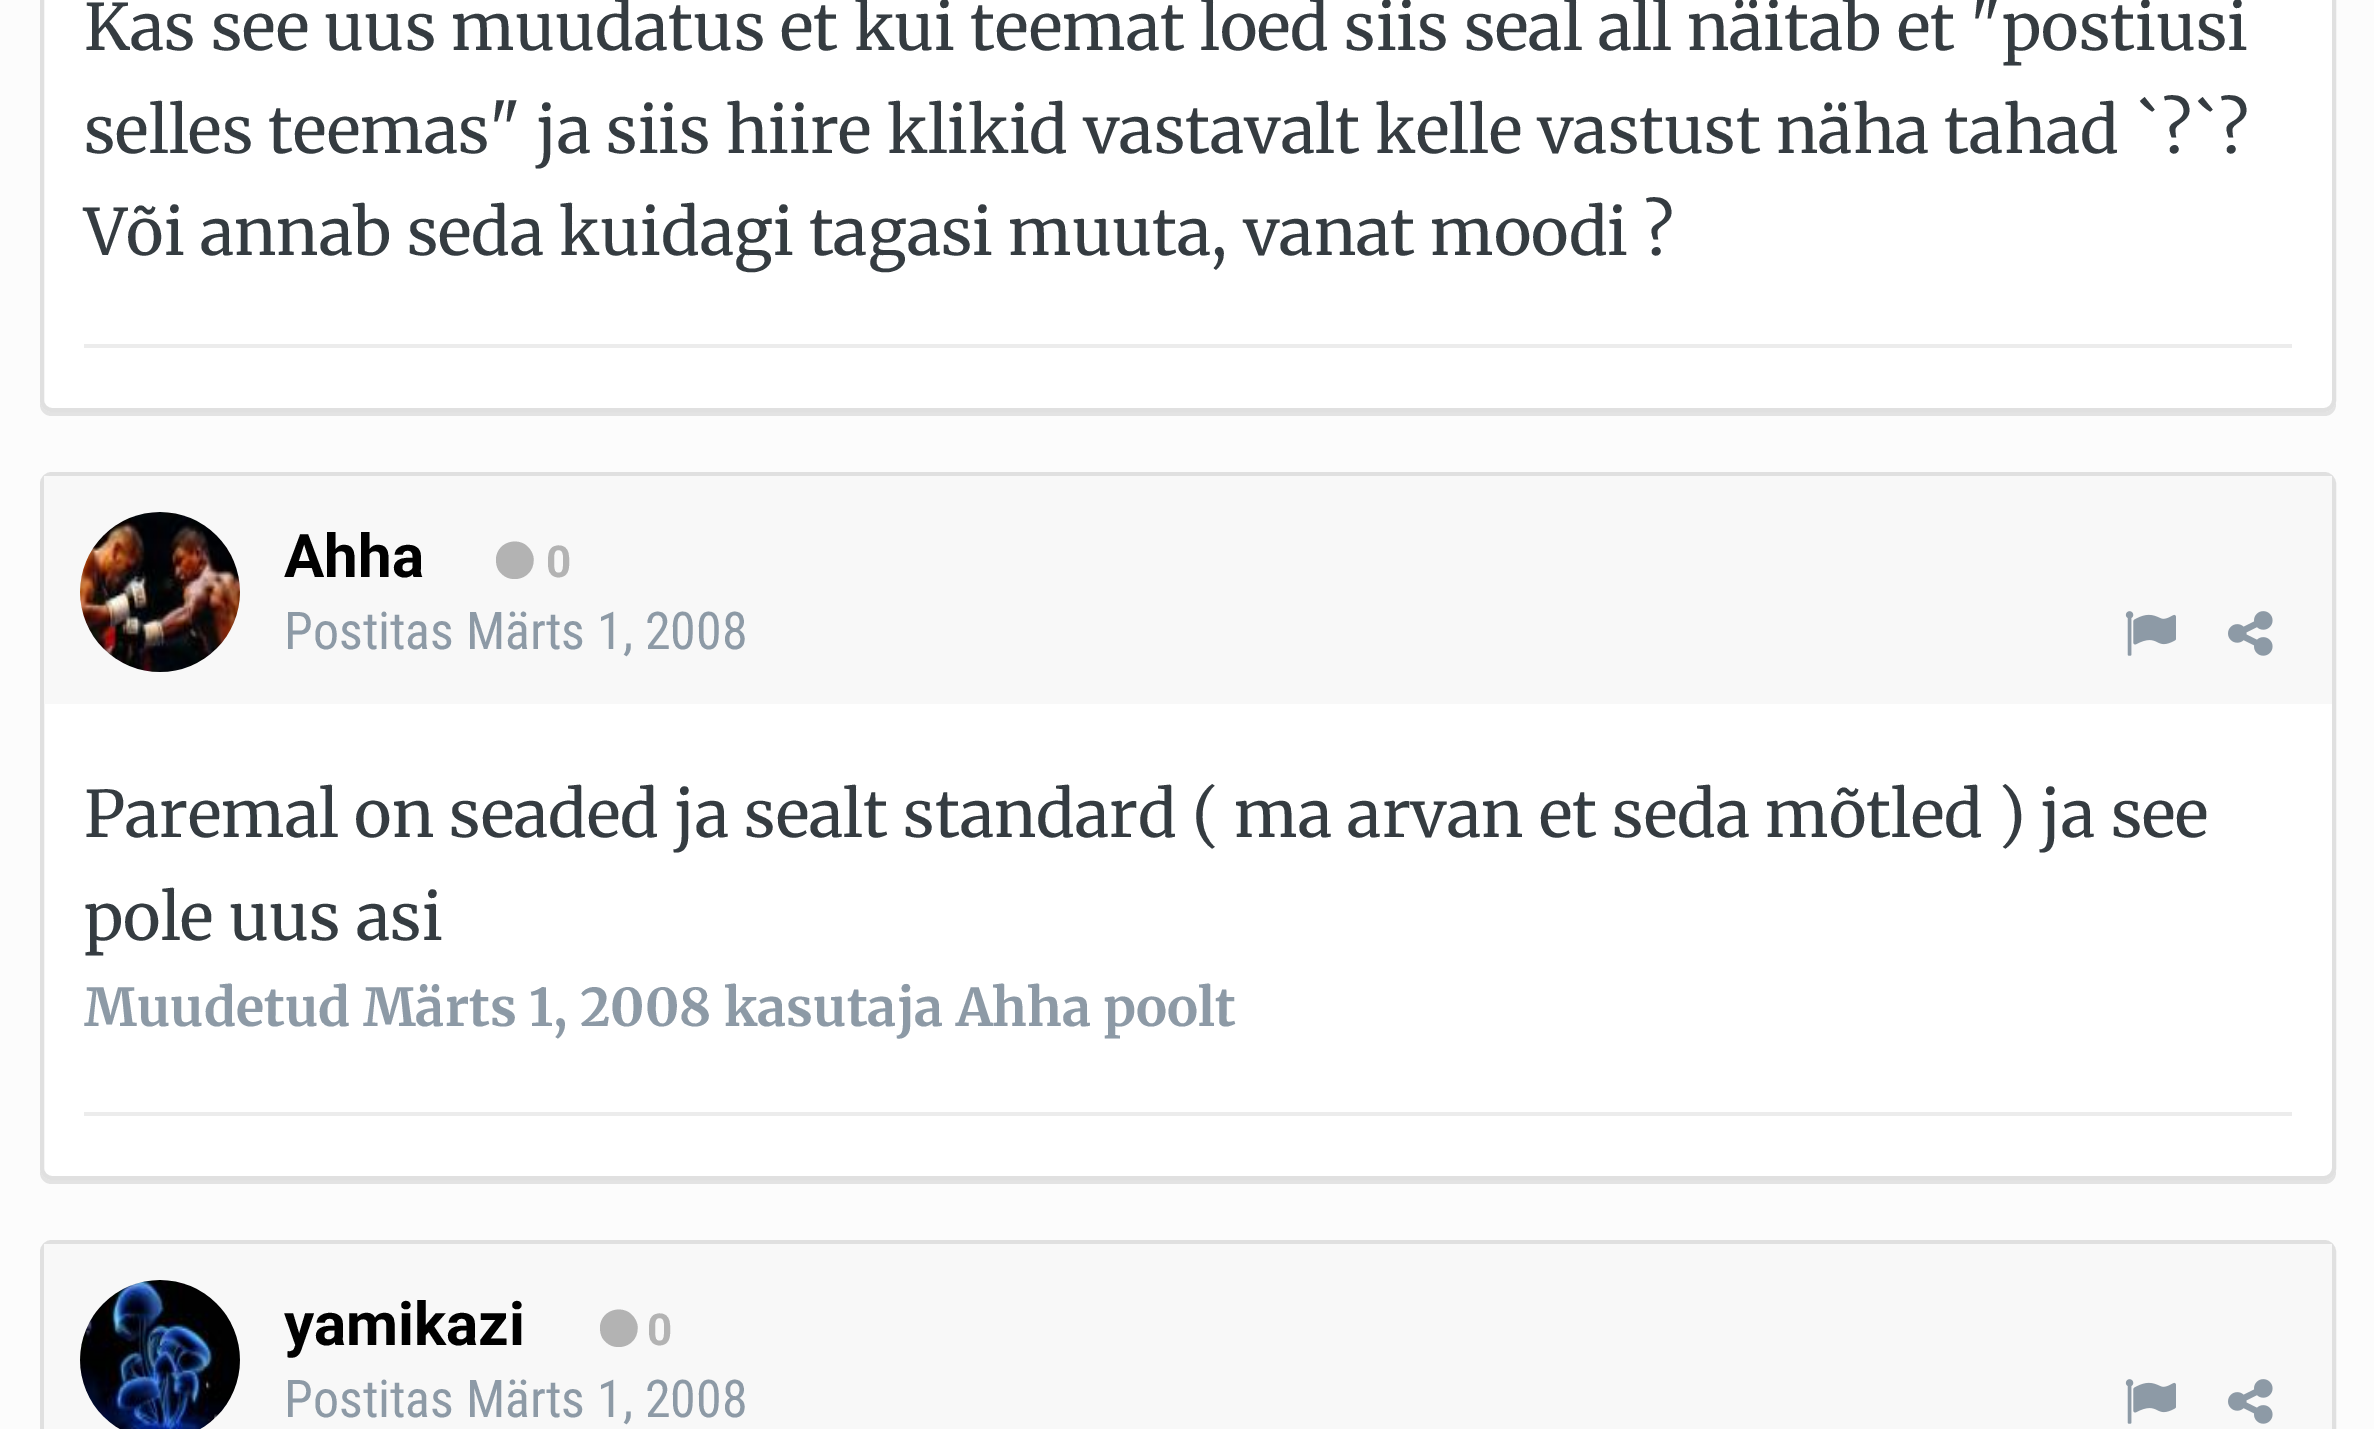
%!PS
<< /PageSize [2374 1429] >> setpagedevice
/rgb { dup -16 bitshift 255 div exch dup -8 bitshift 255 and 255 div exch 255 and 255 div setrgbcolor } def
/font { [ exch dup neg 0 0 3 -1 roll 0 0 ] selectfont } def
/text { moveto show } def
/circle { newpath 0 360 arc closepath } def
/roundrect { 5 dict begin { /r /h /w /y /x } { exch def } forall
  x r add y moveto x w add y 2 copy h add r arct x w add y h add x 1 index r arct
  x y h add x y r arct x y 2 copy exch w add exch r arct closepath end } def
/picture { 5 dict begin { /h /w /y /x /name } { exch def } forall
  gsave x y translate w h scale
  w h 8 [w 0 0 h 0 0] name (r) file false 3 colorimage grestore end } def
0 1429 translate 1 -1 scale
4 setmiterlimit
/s1 { /Merriweather-Regular 64 font 16#353C41 rgb } def
/s2 { /Roboto-Bold 60 font 16#000000 rgb } def
/s3 { /Roboto-Bold 44 font 16#B3B3B3 rgb } def
/s4 { /RobotoCondensed-Regular 52 font 16#8D9AA6 rgb } def
/s5 { /Merriweather-Bold 52 font 16#8D9AA6 rgb } def
16#FCFCFC rgb
0 0 2374 1429 rectfill
16#E3E3E3 rgb
40 400 moveto 40 404 lineto 40 411 45 416 52 416 curveto 2324 416 lineto 2331 416 2336 411 2336 404 curveto 2336 400 lineto 2336 407 2331 412 2324 412 curveto 52 412 lineto 45 412 40 407 40 400 curveto closepath fill
16#FFFFFF rgb
42 -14 2292 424 10 roundrect gsave fill grestore
16#E0E0E0 rgb
4 setlinewidth
stroke
s1
(Kas see uus muudatus et kui teemat loed siis seal all näitab et "postiusi) 84 50 text
(selles teemas" ja siis hiire klikid vastavalt kelle vastust näha tahad `?`?) 84 153 text
(Või annab seda kuidagi tagasi muuta, vanat moodi ?) 84 255 text
16#ECECEC rgb
84 344 2208 4 rectfill
16#E3E3E3 rgb
40 1168 moveto 40 1172 lineto 40 1179 45 1184 52 1184 curveto 2324 1184 lineto 2331 1184 2336 1179 2336 1172 curveto 2336 1168 lineto 2336 1175 2331 1180 2324 1180 curveto 52 1180 lineto 45 1180 40 1175 40 1168 curveto closepath fill
16#FFFFFF rgb
42 474 2292 704 10 roundrect gsave fill grestore
16#E0E0E0 rgb
stroke
16#F8F8F8 rgb
44 476 2288 228 rectfill
16#FFFFFF rgb
160 592 80 circle fill
(pic1.raw) 80 512 160 160 picture
s2
(Ahha) 284 577 text
16#B3B3B3 rgb
531 551 moveto 533 554 534 558 533.5 561.5 curveto 532.5 580 508 585.5 498.5 570 curveto 496.5 566.5 496 563 496 559 curveto 497 540.5 522 535 531 551 curveto closepath fill
s3
(0) 546 577 text
s4
(Postitas Märts 1, 2008) 284 649 text
(pic2.raw) 2125 611 51 45 picture
(pic3.raw) 2228 611 45 45 picture
s1
(Paremal on seaded ja sealt standard \( ma arvan et seda mõtled \) ja see) 84 837 text
(pole uus asi) 84 940 text
s5
(Muudetud Märts 1, 2008 kasutaja Ahha poolt) 84 1026 text
16#ECECEC rgb
84 1112 2208 4 rectfill
16#E0E0E0 rgb
42 1242 2292 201 10 roundrect stroke
16#F8F8F8 rgb
44 1244 2288 185 rectfill
16#FFFFFF rgb
160 1360 80 circle fill
(pic4.raw) 80 1280 160 149 picture
s2
(yamikazi) 284 1345 text
16#B3B3B3 rgb
635 1319 moveto 637 1322 638 1326 637.5 1329.5 curveto 636.5 1348 612 1353.5 602.5 1338 curveto 600.5 1334.5 600 1331 600 1327 curveto 601 1308.5 626 1303 635 1319 curveto closepath fill
s3
(0) 647 1345 text
s4
(Postitas Märts 1, 2008) 284 1417 text
(pic2.raw) 2125 1379 51 45 picture
(pic3.raw) 2228 1379 45 45 picture
showpage
